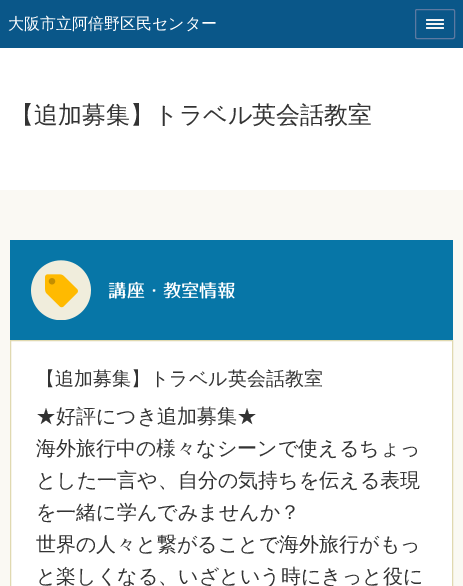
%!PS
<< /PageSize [463 586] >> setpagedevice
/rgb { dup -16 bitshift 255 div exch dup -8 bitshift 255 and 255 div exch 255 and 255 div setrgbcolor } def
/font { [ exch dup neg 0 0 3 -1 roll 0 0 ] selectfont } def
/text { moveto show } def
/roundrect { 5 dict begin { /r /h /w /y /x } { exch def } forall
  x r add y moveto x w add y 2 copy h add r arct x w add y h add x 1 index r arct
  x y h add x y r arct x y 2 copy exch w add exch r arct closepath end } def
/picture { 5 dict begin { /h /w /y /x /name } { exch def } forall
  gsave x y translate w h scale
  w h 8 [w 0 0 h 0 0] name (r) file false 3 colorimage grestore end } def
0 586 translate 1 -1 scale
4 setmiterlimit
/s1 { /WenQuanYiZenHei-Medium 16 font 16#FFFFFF rgb } def
/s2 { /WenQuanYiZenHei-Medium 24 font 16#333333 rgb } def
/s3 { /WenQuanYiZenHei-Medium 19 font 16#333333 rgb } def
/s4 { /WenQuanYiZenHei-Medium 20 font 16#333333 rgb } def
16#FAF9F3 rgb
0 0 463 586 rectfill
16#0A5789 rgb
0 0 463 48 rectfill
s1
(大阪市立阿倍野区民センター) 8 29 text
16#5C79A1 rgb
415.5 9.5 39 29 1.5 roundrect stroke
16#F5F5F5 rgb
426 19 18 2 1 roundrect fill
426 23 18 2 1 roundrect fill
426 27 18 2 1 roundrect fill
16#FFFFFF rgb
0 48 463 142 rectfill
s2
(【追加募集】トラベル英会話教室) 10 123 text
16#0776A7 rgb
10 240 443 100 rectfill
(pic1.raw) 31 260 204 60 picture
16#FFFFFF rgb
10.5 340.5 moveto 452.5 340.5 lineto 452.5 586.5 lineto 10.5 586.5 lineto closepath gsave fill grestore
16#E0D9B0 rgb
stroke
s3
(【追加募集】トラベル英会話教室) 36 385 text
s4
(★好評につき追加募集★) 36 423 text
(海外旅行中の様々なシーンで使えるちょっ) 36 455 text
(とした一言や、自分の気持ちを伝える表現) 36 487 text
(を一緒に学んでみませんか？) 36 519 text
(世界の人々と繋がることで海外旅行がもっ) 36 551 text
(と楽しくなる、いざという時にきっと役に) 36 583 text
showpage
